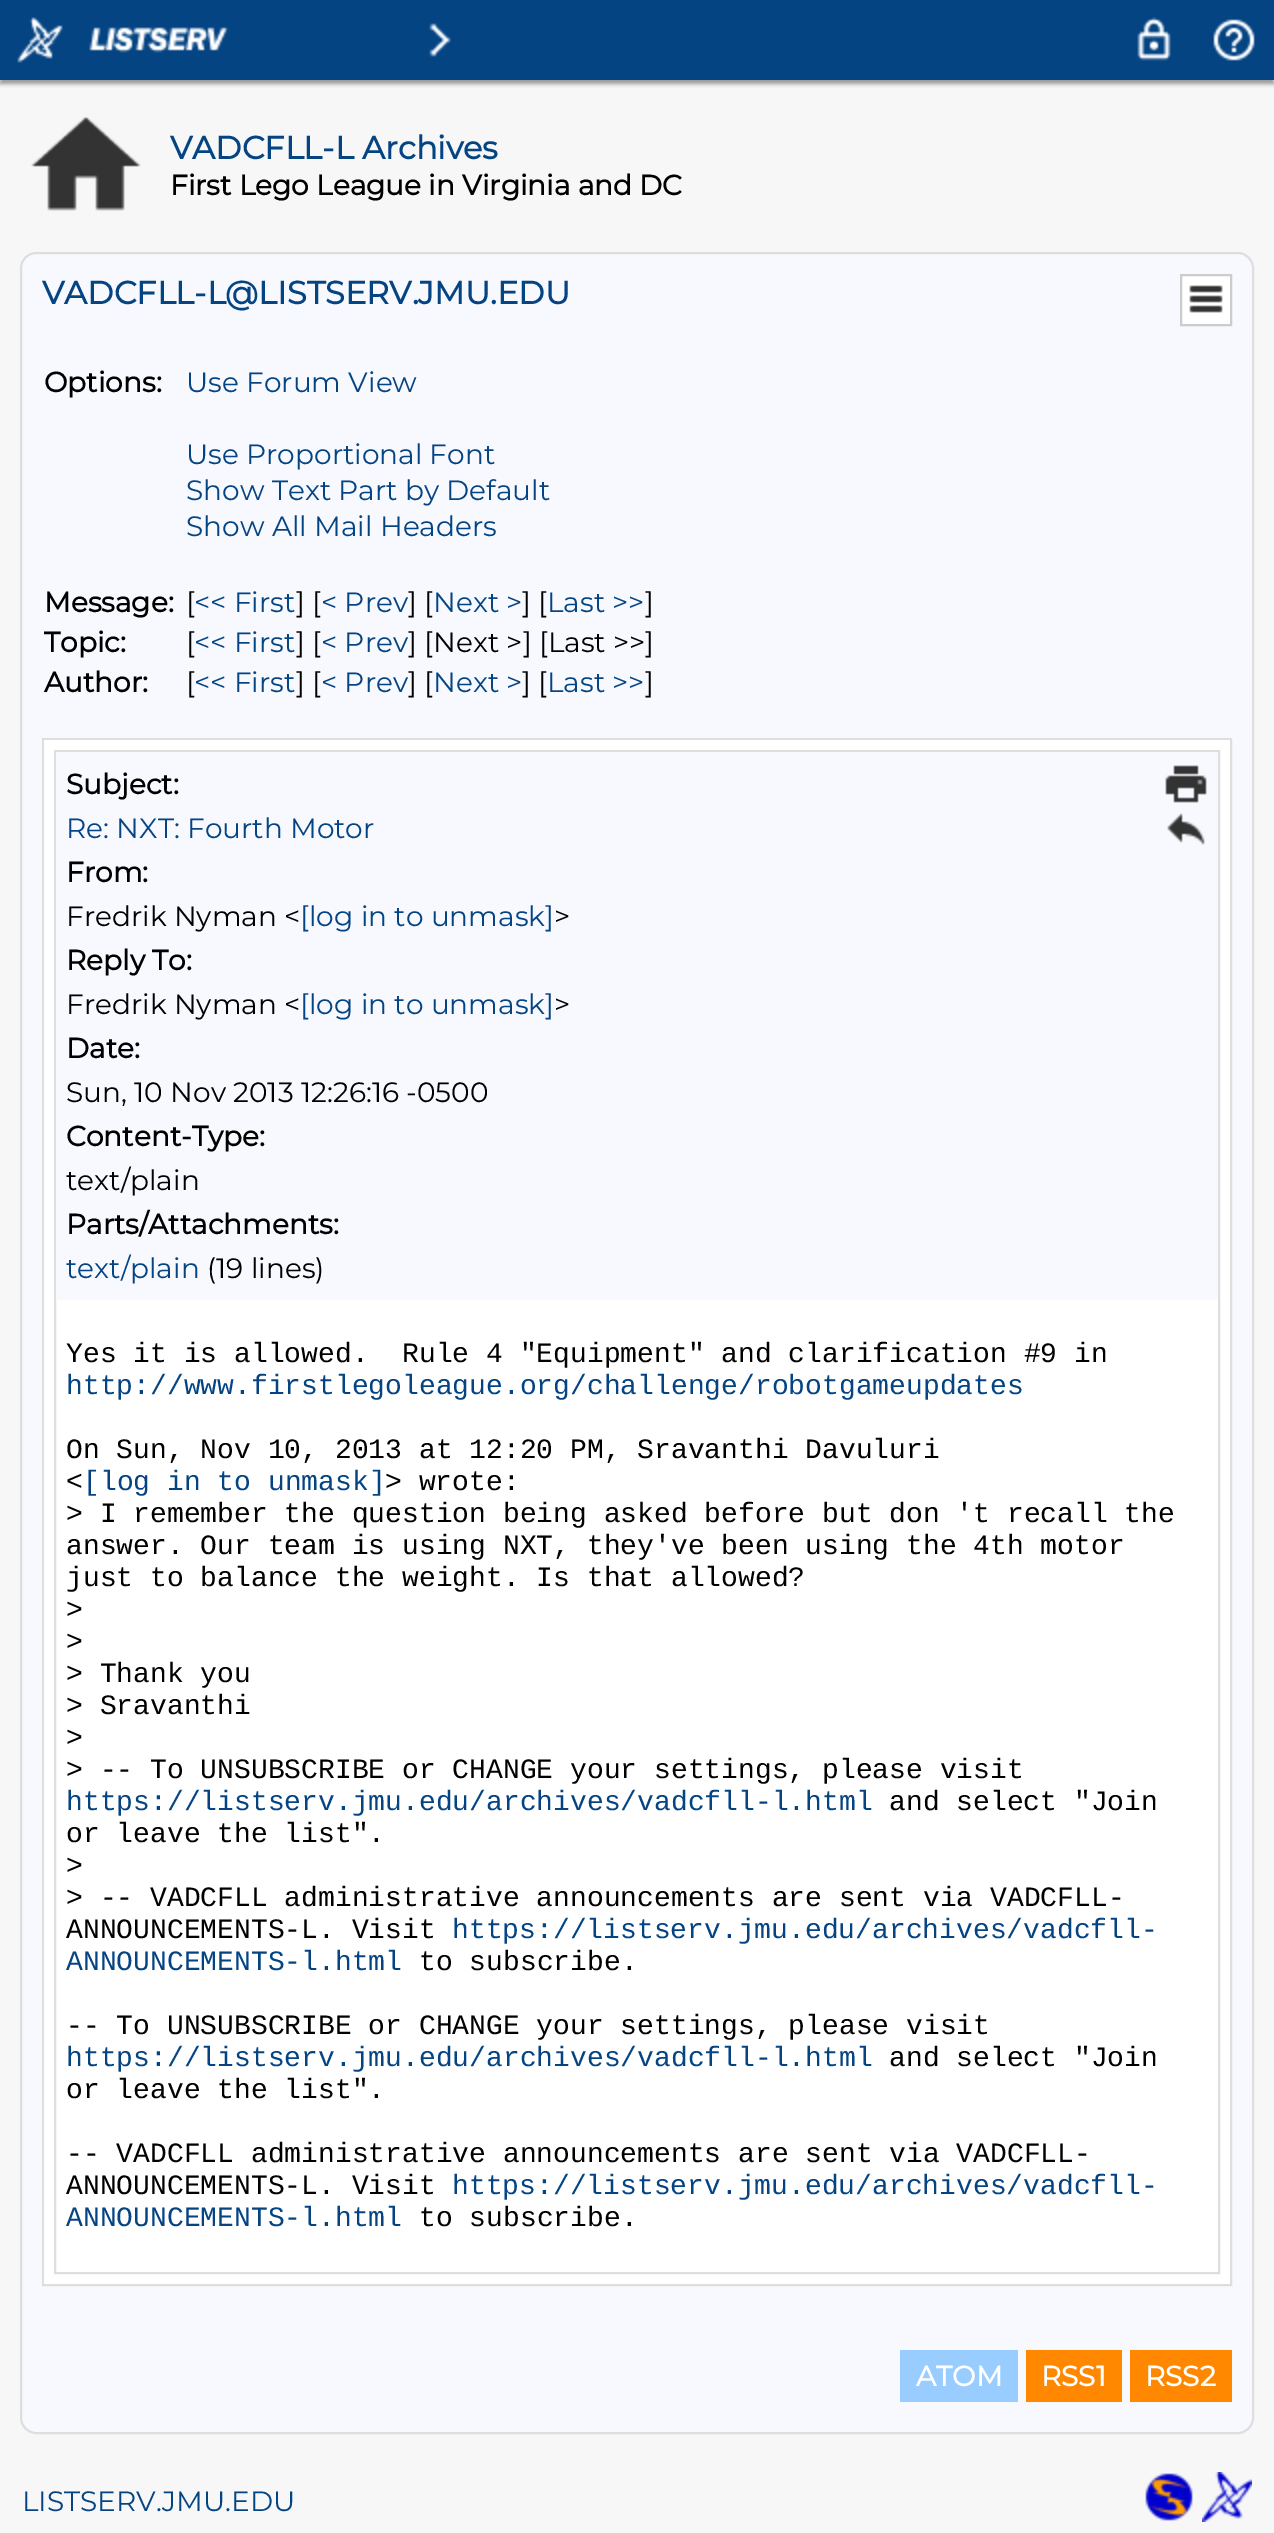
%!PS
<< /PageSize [1274 2533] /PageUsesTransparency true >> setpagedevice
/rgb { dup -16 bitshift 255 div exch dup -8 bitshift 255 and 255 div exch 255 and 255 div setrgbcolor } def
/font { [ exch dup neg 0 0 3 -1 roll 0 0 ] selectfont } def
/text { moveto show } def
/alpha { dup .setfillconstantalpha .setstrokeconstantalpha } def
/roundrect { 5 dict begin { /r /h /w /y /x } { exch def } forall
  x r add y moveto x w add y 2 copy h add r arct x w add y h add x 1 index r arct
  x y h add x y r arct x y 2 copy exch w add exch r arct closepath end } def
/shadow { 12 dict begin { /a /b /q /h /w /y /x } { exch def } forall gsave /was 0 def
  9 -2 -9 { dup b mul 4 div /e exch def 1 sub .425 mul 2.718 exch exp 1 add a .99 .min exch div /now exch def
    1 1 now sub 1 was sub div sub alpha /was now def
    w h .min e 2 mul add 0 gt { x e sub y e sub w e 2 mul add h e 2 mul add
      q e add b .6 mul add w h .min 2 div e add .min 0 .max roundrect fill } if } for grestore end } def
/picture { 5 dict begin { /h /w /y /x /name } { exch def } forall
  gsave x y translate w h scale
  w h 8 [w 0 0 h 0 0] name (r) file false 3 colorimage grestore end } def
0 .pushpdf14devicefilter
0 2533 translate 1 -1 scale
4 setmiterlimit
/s1 { /Montserrat-Bold 32 font 16#054483 rgb } def
/s2 { /Montserrat-Bold 28 font 16#000000 rgb } def
/s3 { /Montserrat-Thin 28 font 16#054483 rgb } def
/s4 { /Montserrat-Thin 28 font 16#000000 rgb } def
/s5 { /LiberationMono-Regular 28 font 16#000000 rgb } def
/s6 { /LiberationMono-Regular 28 font 16#054483 rgb } def
/s7 { /Montserrat-Bold 28 font 16#FFFFFF rgb } def
16#F7F7F7 rgb
0 0 1274 2533 rectfill
16#999999 rgb
0 4 1274 80 0 2 1 shadow
16#054483 rgb
0 0 1274 80 rectfill
(pic1.raw) 17 17 46 46 picture
(pic2.raw) 89 27 140 26 picture
(pic3.raw) 429 23 22 34 picture
(pic4.raw) 1137 17 34 44 picture
(pic5.raw) 1213 19 42 42 picture
(pic6.raw) 31 117 110 94 picture
s1
(VADCFLL-L Archives) 170 159 text
s2
(First Lego League in Virginia and DC) 170 195 text
16#F7F9FE rgb
21 253 1232 2180 15 roundrect gsave fill grestore
16#DEDEDE rgb
2 setlinewidth
stroke
s1
(VADCFLL-L@LISTSERV.JMU.EDU) 42 304 text
16#FFFFFF rgb
1181 275 moveto 1231 275 lineto 1231 325 lineto 1181 325 lineto closepath gsave fill grestore
16#CCCCCC rgb
stroke
(pic7.raw) 1189 285 34 28 picture
s2
(Options:) 44 392 text
s3
(Use Forum View) 186 392 text
(Use Proportional Font) 186 464 text
(Show Text Part by Default) 186 500 text
(Show All Mail Headers) 186 536 text
s2
(Message:) 44 612 text
s4
([) 186 612 text
s3
(<< First) 194 612 text
s4
(] [) 296 612 text
s3
(< Prev) 321 612 text
s4
(] [) 408 612 text
s3
(Next >) 433 612 text
s4
(] [) 522 612 text
s3
(Last >>) 547 612 text
s4
(]) 645 612 text
s2
(Topic:) 44 652 text
s4
([) 186 652 text
s3
(<< First) 194 652 text
s4
(] [) 296 652 text
s3
(< Prev) 321 652 text
s4
(] [Next >] [Last >>]) 408 652 text
s2
(Author:) 44 692 text
s4
([) 186 692 text
s3
(<< First) 194 692 text
s4
(] [) 296 692 text
s3
(< Prev) 321 692 text
s4
(] [) 408 692 text
s3
(Next >) 433 692 text
s4
(] [) 522 692 text
s3
(Last >>) 547 692 text
s4
(]) 645 692 text
16#DEDEDE rgb
43 739 1188 1546 rectstroke
16#FFFFFF rgb
44 740 1186 1544 rectfill
16#DEDEDE rgb
55 751 1164 1522 rectstroke
16#F7F9FE rgb
56 752 1162 548 rectfill
s2
(Subject:) 66 794 text
s3
(Re: NXT: Fourth Motor) 66 838 text
s2
(From:) 66 882 text
s4
(Fredrik Nyman <) 66 926 text
s3
([log in to unmask]) 300 926 text
s4
(>) 554 926 text
s2
(Reply To:) 66 970 text
s4
(Fredrik Nyman <) 66 1014 text
s3
([log in to unmask]) 300 1014 text
s4
(>) 554 1014 text
s2
(Date:) 66 1058 text
s4
(Sun, 10 Nov 2013 12:26:16 -0500) 66 1102 text
s2
(Content-Type:) 66 1146 text
s4
(text/plain) 66 1190 text
s2
(Parts/Attachments:) 66 1234 text
s3
(text/plain) 66 1278 text
s4
(\(19 lines\)) 207 1278 text
(pic8.raw) 1165 765 42 38 picture
(pic9.raw) 1167 813 38 32 picture
s5
(Yes it is allowed.  Rule 4 "Equipment" and clarification #9 in) 66 1362 text
s6
(http://www.firstlegoleague.org/challenge/robotgameupdates) 66 1394 text
s5
(On Sun, Nov 10, 2013 at 12:20 PM, Sravanthi Davuluri) 66 1458 text
(<) 66 1490 text
s6
([log in to unmask]) 83 1490 text
s5
(> wrote:) 385 1490 text
(> I remember the question being asked before but don 't recall the) 66 1522 text
(answer. Our team is using NXT, they've been using the 4th motor) 66 1554 text
(just to balance the weight. Is that allowed?) 66 1586 text
(>) 66 1618 text
(>) 66 1650 text
(> Thank you) 66 1682 text
(> Sravanthi) 66 1714 text
(>) 66 1746 text
(> -- To UNSUBSCRIBE or CHANGE your settings, please visit) 66 1778 text
s6
(https://listserv.jmu.edu/archives/vadcfll-l.html) 66 1810 text
s5
(and select "Join) 889 1810 text
(or leave the list".) 66 1842 text
(>) 66 1874 text
(> -- VADCFLL administrative announcements are sent via VADCFLL-) 66 1906 text
(ANNOUNCEMENTS-L. Visit) 66 1938 text
s6
(https://listserv.jmu.edu/archives/vadcfll-) 452 1938 text
(ANNOUNCEMENTS-l.html) 66 1970 text
s5
(to subscribe.) 419 1970 text
(-- To UNSUBSCRIBE or CHANGE your settings, please visit) 66 2034 text
s6
(https://listserv.jmu.edu/archives/vadcfll-l.html) 66 2066 text
s5
(and select "Join) 889 2066 text
(or leave the list".) 66 2098 text
(-- VADCFLL administrative announcements are sent via VADCFLL-) 66 2162 text
(ANNOUNCEMENTS-L. Visit) 66 2194 text
s6
(https://listserv.jmu.edu/archives/vadcfll-) 452 2194 text
(ANNOUNCEMENTS-l.html) 66 2226 text
s5
(to subscribe.) 419 2226 text
16#99CCFF rgb
900 2350 118 52 rectfill
s7
(ATOM) 916 2386 text
16#FF8800 rgb
1026 2350 96 52 rectfill
s7
(RSS1) 1041 2386 text
16#FF8800 rgb
1130 2350 102 52 rectfill
s7
(RSS2) 1145 2386 text
s3
(LISTSERV.JMU.EDU) 22 2511 text
(pic10.raw) 1145 2473 48 48 picture
(pic11.raw) 1202 2472 50 50 picture
.poppdf14devicefilter showpage
